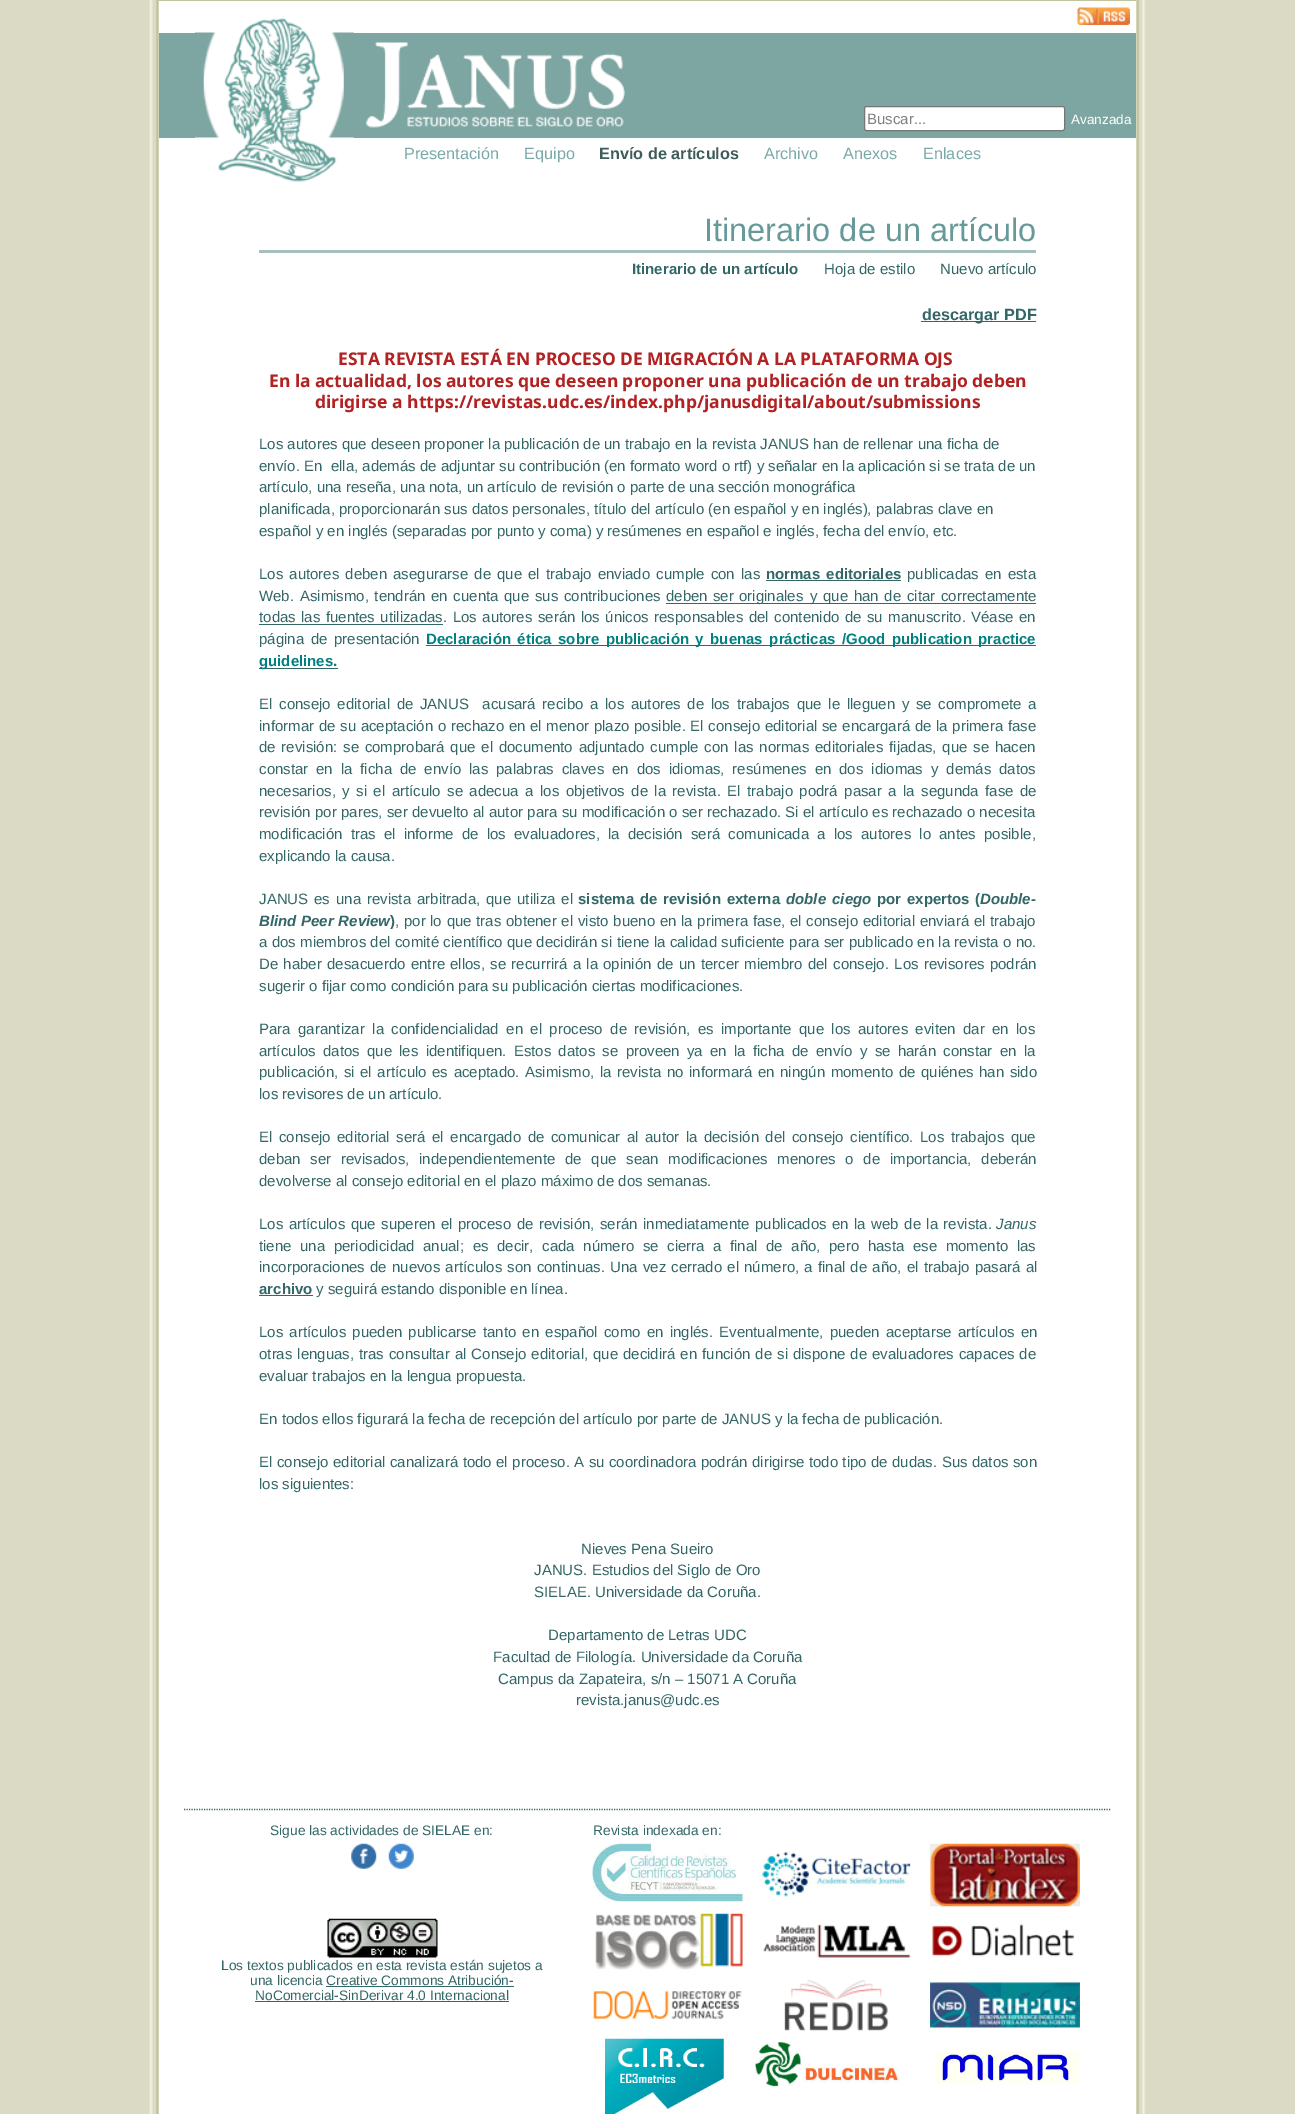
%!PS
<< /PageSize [1295 2114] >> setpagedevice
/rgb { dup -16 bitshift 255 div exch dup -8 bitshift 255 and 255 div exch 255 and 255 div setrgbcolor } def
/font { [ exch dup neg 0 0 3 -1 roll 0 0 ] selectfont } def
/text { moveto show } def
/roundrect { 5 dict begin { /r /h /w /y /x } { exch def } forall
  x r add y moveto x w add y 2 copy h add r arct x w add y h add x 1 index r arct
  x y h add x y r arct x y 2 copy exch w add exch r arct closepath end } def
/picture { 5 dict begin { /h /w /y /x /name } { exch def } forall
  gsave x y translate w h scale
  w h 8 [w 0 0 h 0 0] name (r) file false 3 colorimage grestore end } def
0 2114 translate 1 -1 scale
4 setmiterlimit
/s1 { /LiberationSans-Regular 15 font 16#808080 rgb } def
/s2 { /LiberationSans-Regular 13.5 font 16#FFFFFF rgb } def
/s3 { /LiberationSans-Regular 16.25 font 16#7BA9A9 rgb } def
/s4 { /LiberationSans-Bold 16.25 font 16#3E5D5A rgb } def
/s5 { /LiberationSans-Regular 32.5 font 16#669999 rgb } def
/s6 { /LiberationSans-Bold 15 font 16#336666 rgb } def
/s7 { /LiberationSans-Regular 15 font 16#336666 rgb } def
/s8 { /LiberationSans-Bold 16.25 font 16#336666 rgb } def
/s9 { /NotoSans-Bold 17.5 font 16#B22222 rgb } def
/s10 { /LiberationSans-Bold 15 font 16#008080 rgb } def
/s11 { /LiberationSans-BoldItalic 15 font 16#336666 rgb } def
/s12 { /LiberationSans-Italic 15 font 16#336666 rgb } def
/s13 { /LiberationSans-Regular 13.75 font 16#336666 rgb } def
16#DADAC5 rgb
0 0 1295 2114 rectfill
16#FFFFFF rgb
158 0 979 2114 rectfill
(pic1.raw) 149 0 997 2114 picture
16#C2C29C rgb
159 0 977 1 rectfill
(pic2.raw) 1077 7 53 18 picture
16#7DA5A1 rgb
159 33 977 105 rectfill
(pic3.raw) 195 18 159 164 picture
(pic4.raw) 366 42 259 86 picture
16#FFFFFF rgb
864.5 106.5 200 24 2 roundrect gsave fill grestore
16#767676 rgb
stroke
s1
(Buscar...) 867 124 text
s2
(Avanzada) 1071 124 text
s3
(Presentación) 404 159 text
(Equipo) 524 159 text
s4
(Envío de artículos) 599 159 text
s3
(Archivo) 764 159 text
(Anexos) 843 159 text
(Enlaces) 923 159 text
16#A6BFBC rgb
259 250 777 3 rectfill
s5
(Itinerario de un artículo) 704 241 text
s6
(Itinerario de un artículo) 632 274 text
s7
(Hoja de estilo) 824 274 text
(Nuevo artículo) 940 274 text
921 321 115 1 rectfill
s8
(descargar PDF) 922 320 text
s9
(ESTA REVISTA ESTÁ EN PROCESO DE MIGRACIÓN A LA PLATAFORMA OJS) 338 365 text
(En la actualidad, los autores que deseen proponer una publicación de un trabajo deben) 269 387 text
16#FFFFFF rgb
935 368 5 1 rectfill
s9
(dirigirse a https://revistas.udc.es/index.php/janusdigital/about/submissions) 315 408 text
s7
(Los autores que deseen proponer la publicación de un trabajo en la revista JANUS han de rellenar una ficha de) 259 449 text
(envío. En  ella, además de adjuntar su contribución \(en formato word o rtf\) y señalar en la aplicación si se trata de un) 259 471 text
(artículo, una reseña, una nota, un artículo de revisión o parte de una sección monográfica) 259 492 text
(planificada, proporcionarán sus datos personales, título del artículo \(en español y en inglés\), palabras clave en) 259 514 text
(español y en inglés \(separadas por punto y coma\) y resúmenes en español e inglés, fecha del envío, etc.) 259 536 text
259 579 moveto 1.9 0 32 (Los autores deben asegurarse de que el trabajo enviado cumple con las) widthshow
/LiberationSans-Bold 15 font
766 579 moveto 2 0 32 (normas editoriales) widthshow
766 580 135 1 rectfill
/LiberationSans-Regular 15 font
907 579 moveto 1.9 0 32 (publicadas en esta) widthshow
259 601 moveto 1.5 0 32 (Web. Asimismo, tendrán en cuenta que sus contribuciones) widthshow
666 603 370 1 rectfill
666 601 moveto 1 0 32 (deben ser originales) widthshow
(y) 810 601 text
823 601 moveto 1.5 0 32 (que han de citar correctamente) widthshow
259 624 184 1 rectfill
259 622 moveto 1.3 0 32 (todas las fuentes utilizadas. Los autores serán los únicos responsables del contenido de su manuscrito. Véase en) widthshow
259 644 moveto 2.4 0 32 (página de presentación) widthshow
s10
(De) 426 644 text
16#336666 rgb
426 645 610 1 rectfill
16#008080 rgb
445 644 moveto 2.4 0 32 (claración ética sobre publicación y buenas prácticas) widthshow
(/) 842 644 text
846 644 moveto 2.4 0 32 (Good publication practice) widthshow
16#336666 rgb
259 668 79 1 rectfill
s10
(guidelines.) 259 666 text
/LiberationSans-Regular 15 font
16#336666 rgb
259 709 moveto 2.5 0 32 (El consejo editorial de JANUS  acusará recibo a los autores de los trabajos que le lleguen y se compromete a) widthshow
259 731 moveto 0.5 0 32 (informar de su aceptación o rechazo en el menor plazo posible. El consejo editorial se encargará de la primera fase) widthshow
259 752 moveto 1.6 0 32 (de revisión: se comprobará que el documento adjuntado cumple con las normas editoriales fijadas, que se hacen) widthshow
259 774 moveto 3.75 0 32 (constar en la ficha de envío las palabras claves en dos idiomas, resúmenes en dos idiomas y demás datos) widthshow
259 796 moveto 2.3 0 32 (necesarios, y si el artículo se adecua a los objetivos de la revista. El trabajo podrá pasar a la segunda fase de) widthshow
259 817 moveto 0.1 0 32 (revisión por pares, ser devuelto al autor para su modificación o ser rechazado. Si el artículo es rechazado o necesita) widthshow
259 839 moveto 4 0 32 (modificación tras el informe de los evaluadores, la decisión será comunicada a los autores lo antes posible,) widthshow
(explicando la causa.) 259 861 text
259 904 moveto 1.75 0 32 (JANUS es una revista arbitrada, que utiliza el) widthshow
/LiberationSans-Bold 15 font
578 904 moveto 1.75 0 32 (sistema de revisión externa) widthshow
/LiberationSans-BoldItalic 15 font
786 904 moveto 2 0 32 (doble ciego) widthshow
/LiberationSans-Bold 15 font
877 904 moveto 1.75 0 32 (por expertos \() widthshow
s11
(Double-) 980 904 text
259 926 moveto 0.5 0 32 (Blind Peer Review) widthshow
s6
(\)) 390 926 text
/LiberationSans-Regular 15 font
395 926 moveto 0.5 0 32 (, por lo que tras obtener el visto bueno en la primera fase, el consejo editorial enviará el trabajo) widthshow
259 947 moveto 0.2 0 32 (a dos miembros del comité científico que decidirán si tiene la calidad suficiente para ser publicado en la revista o no.) widthshow
259 969 moveto 1.1 0 32 (De haber desacuerdo entre ellos, se recurrirá a la opinión de un tercer miembro del consejo. Los revisores podrán) widthshow
(sugerir o fijar como condición para su publicación ciertas modificaciones.) 259 991 text
259 1034 moveto 3.25 0 32 (Para garantizar la confidencialidad en el proceso de revisión, es importante que los autores eviten dar en los) widthshow
259 1056 moveto 3.1 0 32 (artículos datos que les identifiquen. Estos datos se proveen ya en la ficha de envío y se harán constar en la) widthshow
259 1077 moveto 1.4 0 32 (publicación, si el artículo es aceptado. Asimismo, la revista no informará en ningún momento de quiénes han sido) widthshow
(los revisores de un artículo.) 259 1099 text
259 1142 moveto 2.4 0 32 (El consejo editorial será el encargado de comunicar al autor la decisión del consejo científico. Los trabajos que) widthshow
259 1164 moveto 5.6 0 32 (deban ser revisados, independientemente de que sean modificaciones menores o de importancia, deberán) widthshow
(devolverse al consejo editorial en el plazo máximo de dos semanas.) 259 1186 text
259 1229 moveto 1.25 0 32 (Los artículos que superen el proceso de revisión, serán inmediatamente publicados en la web de la revista.) widthshow
s12
(Janus) 996 1229 text
/LiberationSans-Regular 15 font
259 1251 moveto 4.4 0 32 (tiene una periodicidad anual; es decir, cada número se cierra a final de año, pero hasta ese momento las) widthshow
259 1272 moveto 1 0 32 (incorporaciones de nuevos artículos son continuas. Una vez cerrado el número, a final de año, el trabajo pasará al) widthshow
s6
(archivo) 259 1294 text
259 1295 54 1 rectfill
s7
(y seguirá estando disponible en línea.) 316 1294 text
259 1337 moveto 2 0 32 (Los artículos pueden publicarse tanto en español como en inglés. Eventualmente, pueden aceptarse artículos en) widthshow
259 1359 moveto 0.8 0 32 (otras lenguas, tras consultar al Consejo editorial, que decidirá en función de si dispone de evaluadores capaces de) widthshow
(evaluar trabajos en la lengua propuesta.) 259 1381 text
(En todos ellos figurará la fecha de recepción del artículo por parte de JANUS y la fecha de publicación.) 259 1424 text
259 1467 moveto 0.25 0 32 (El consejo editorial canalizará todo el proceso. A su coordinadora podrán dirigirse todo tipo de dudas. Sus datos son) widthshow
(los siguientes:) 259 1489 text
(Nieves Pena Sueiro) 581 1554 text
(JANUS. Estudios del Siglo de Oro) 534 1575 text
(SIELAE. Universidade da Coruña.) 534 1597 text
(Departamento de Letras UDC) 548 1640 text
(Facultad de Filología. Universidade da Coruña) 493 1662 text
(Campus da Zapateira, s/n – 15071 A Coruña) 498 1684 text
(revista.janus@udc.es) 576 1705 text
1.2 setlinewidth
[1.25 1.25] 0 setdash
184 1809.5 moveto 1111 1809.5 lineto stroke
s13
(Sigue las actividades de SIELAE en:) 270 1835 text
(pic5.raw) 351 1843 26 26 picture
(pic6.raw) 388 1843 26 26 picture
(pic7.raw) 327 1918 111 40 picture
(Los textos publicados en esta revista están sujetos a) 221 1970 text
(una licencia Creative Commons Atribución-) 250 1985 text
(NoComercial-SinDerivar 4.0 Internacional) 255 2000 text
326 1986 188 1 rectfill
255 2001 254 1 rectfill
(Revista indexada en:) 593 1835 text
(pic8.raw) 592 1843 151 59 picture
(pic9.raw) 762 1851 149 46 picture
(pic10.raw) 930 1843 150 64 picture
(pic11.raw) 595 1913 148 57 picture
(pic12.raw) 763 1924 148 34 picture
(pic13.raw) 932 1923 143 34 picture
(pic14.raw) 593 1990 149 29 picture
(pic15.raw) 784 1980 105 51 picture
(pic16.raw) 930 1982 150 46 picture
(pic17.raw) 605 2038 119 76 picture
(pic18.raw) 755 2042 144 47 picture
(pic19.raw) 935 2052 144 32 picture
showpage
